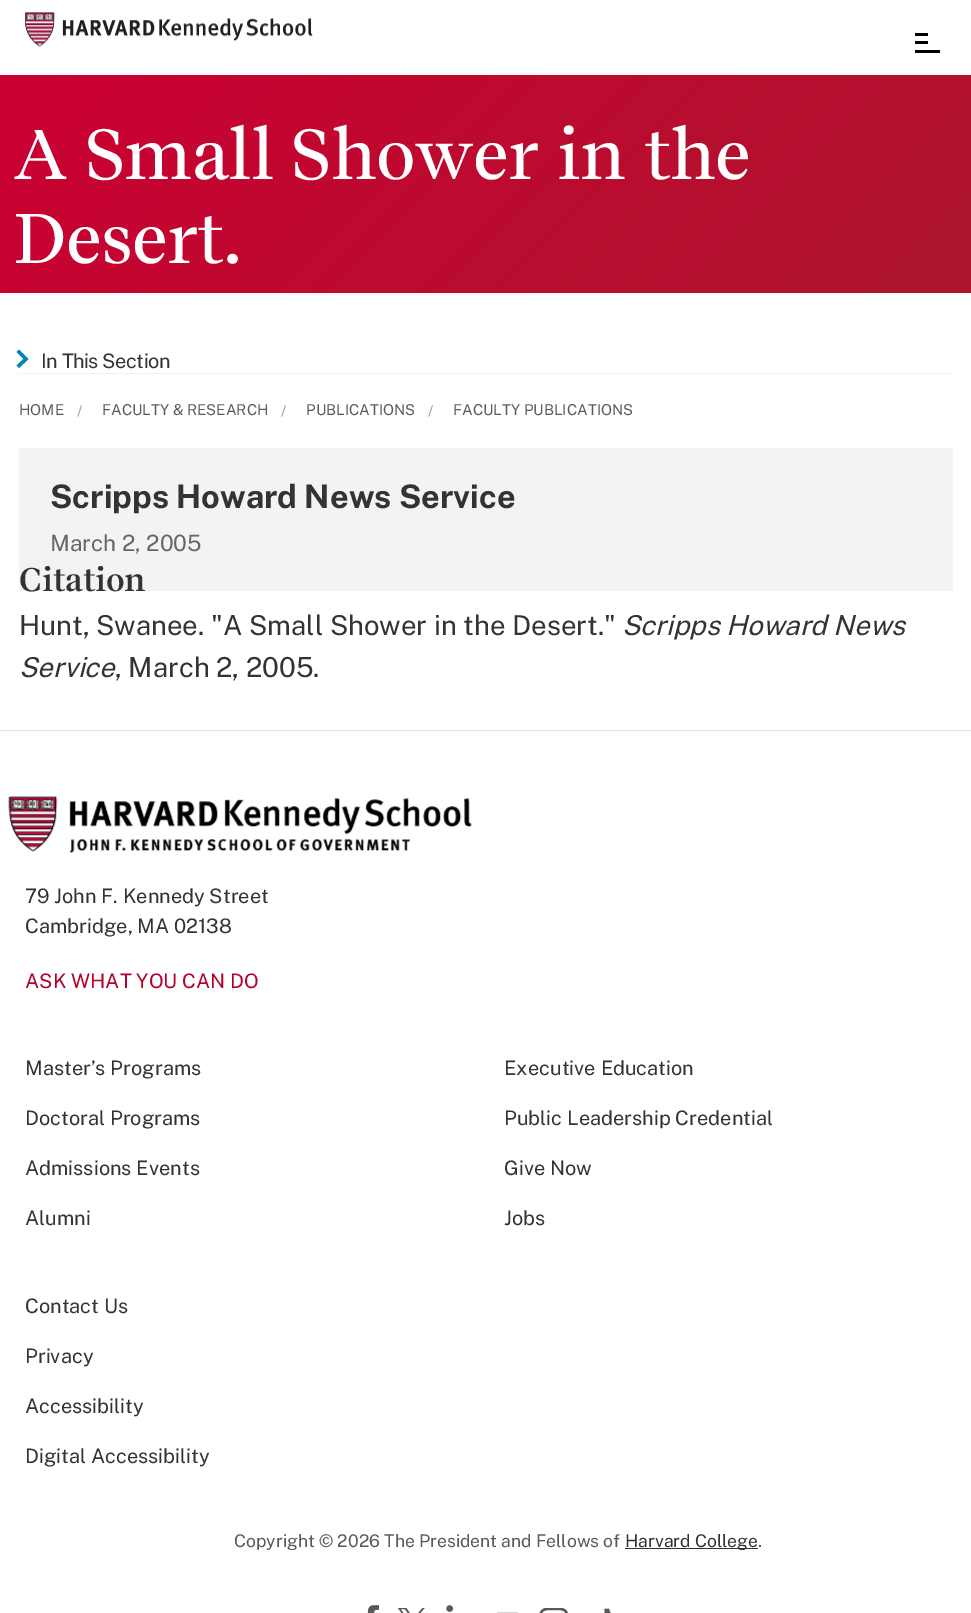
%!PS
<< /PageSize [971 1613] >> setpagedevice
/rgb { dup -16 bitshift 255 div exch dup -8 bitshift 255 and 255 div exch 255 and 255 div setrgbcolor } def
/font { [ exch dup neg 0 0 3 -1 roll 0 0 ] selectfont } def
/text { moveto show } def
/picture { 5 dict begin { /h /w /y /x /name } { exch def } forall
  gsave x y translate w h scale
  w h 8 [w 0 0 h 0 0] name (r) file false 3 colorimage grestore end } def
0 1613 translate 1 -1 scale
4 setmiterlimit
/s1 { /PublicSans-Thin 15 font 16#595959 rgb } def
/s2 { /PublicSans-Thin 15 font 16#999999 rgb } def
/s3 { /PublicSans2-Thin 32.5 font 16#333333 rgb } def
/s4 { /PublicSans-Thin 22.5 font 16#666666 rgb } def
/s5 { /PublicSans-Thin 27.5 font 16#333333 rgb } def
/s6 { /PublicSans-ThinItalic 27.5 font 16#333333 rgb } def
/s7 { /PublicSans-Thin 20 font 16#333333 rgb } def
/s8 { /PublicSans-Thin 20 font 16#B50027 rgb } def
/s9 { /PublicSans-Thin 17.5 font 16#595959 rgb } def
/s10 { /PublicSans-Thin 17.5 font 16#333333 rgb } def
16#FFFFFF rgb
0 0 971 1613 rectfill
(pic1.raw) 25 12 288 35 picture
16#000000 rgb
915 33 13 3 rectfill
915 41 13 3 rectfill
915 50 25 3 rectfill
gsave 0 75 moveto 971 75 lineto 971 293 lineto 0 293 lineto closepath clip newpath
<< /ShadingType 2 /ColorSpace /DeviceRGB /Coords [188 -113 783 481] /Extend [true true] /Function << /FunctionType 2 /Domain [0 1] /C0 [0.8 0 0.2] /C1 [0.675 0.086 0.173] /N 1 >> >> shfill grestore
/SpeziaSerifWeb-Medium 70 font
16#FFFFFF rgb
13 179 moveto -1.25 0 (A Small Shower in the) ashow
13 263 moveto -1.25 0 (Desert.) ashow
16#EEF2F4 rgb
19 373 934 1 rectfill
16#0086B3 rgb
28.5 359 moveto 19 349.5 lineto 16.5 352 lineto 23.5 359 lineto 16.5 365.5 lineto 19 368 lineto closepath fill
/PublicSans-Thin 20 font
16#333333 rgb
41 368 moveto -0.5 0 (In This Section) ashow
s1
(HOME) 19 415 text
s2
(/) 77 416 text
s1
(FACULTY & RESEARCH) 102 415 text
s2
(/) 281 416 text
s1
(PUBLICATIONS) 306 415 text
s2
(/) 428 416 text
s1
(FACULTY PUBLICATIONS) 453 415 text
16#F4F2F3 rgb
19 448 934 143 rectfill
s3
(Scripps Howard News Service) 50 508 text
s4
(March 2, 2005) 50 551 text
/SpeziaSerifWeb-SemiBold 32.5 font
16#333333 rgb
19 591 moveto -0.5 0 (Citation) ashow
s5
(Hunt, Swanee. "A Small Shower in the Desert.") 19 635 text
s6
(Scripps Howard News) 622 635 text
(Service) 19 677 text
s5
(, March 2, 2005.) 115 677 text
16#DEE5E9 rgb
0 730 971 1 rectfill
(pic2.raw) 8 796 464 58 picture
s7
(79 John F. Kennedy Street) 25 903 text
(Cambridge, MA 02138) 25 933 text
s8
(ASK WHAT YOU CAN DO) 25 988 text
s7
(Master’s Programs) 25 1075 text
(Executive Education) 504 1075 text
(Doctoral Programs) 25 1125 text
(Public Leadership Credential) 504 1125 text
(Admissions Events) 25 1175 text
(Give Now) 504 1175 text
(Alumni) 25 1225 text
(Jobs) 504 1225 text
(Contact Us) 25 1313 text
(Privacy) 25 1363 text
(Accessibility) 25 1413 text
(Digital Accessibility) 25 1463 text
s9
(Copyright © 2026 The President and Fellows of) 234 1547 text
16#333333 rgb
625 1548 133 1 rectfill
(Harvard College) 625 1547 text
s9
(.) 758 1547 text
(pic3.raw) 367 1605 12 8 picture
(pic4.raw) 398 1608 27 5 picture
(pic5.raw) 446 1605 7 7 picture
(pic6.raw) 496 1612 23 1 picture
(pic7.raw) 539 1608 29 5 picture
(pic8.raw) 604 1608 7 5 picture
showpage
